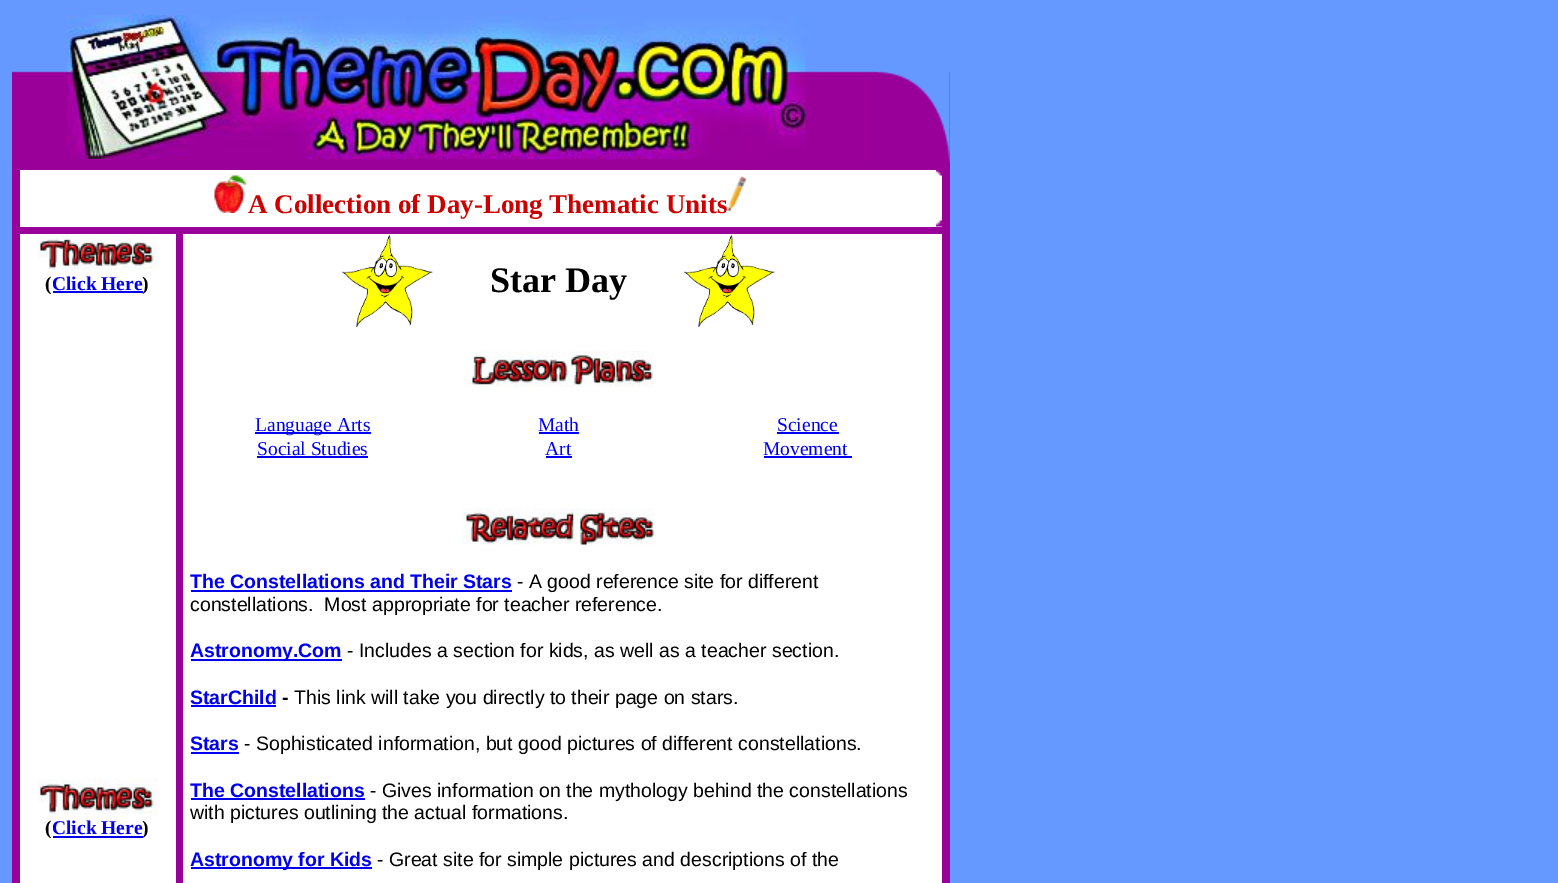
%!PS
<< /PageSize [1558 883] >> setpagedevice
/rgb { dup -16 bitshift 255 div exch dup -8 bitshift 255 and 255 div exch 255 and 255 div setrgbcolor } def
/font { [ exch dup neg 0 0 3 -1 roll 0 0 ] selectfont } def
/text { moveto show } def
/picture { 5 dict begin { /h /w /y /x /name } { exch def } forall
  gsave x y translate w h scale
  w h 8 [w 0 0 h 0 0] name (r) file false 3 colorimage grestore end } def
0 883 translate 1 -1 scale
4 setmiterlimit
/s1 { /LiberationSerif-Bold 27 font 16#CC0000 rgb } def
/s2 { /LiberationSerif-Bold 19.5 font 16#000000 rgb } def
/s3 { /LiberationSerif-Bold 19.5 font 16#0000EE rgb } def
/s4 { /LiberationSerif-Bold 36 font 16#000000 rgb } def
/s5 { /LiberationSerif-Regular 19.5 font 16#0000EE rgb } def
/s6 { /LiberationSans-Bold 19.5 font 16#0000EE rgb } def
/s7 { /LiberationSans-Regular 19.5 font 16#000000 rgb } def
/s8 { /LiberationSans-Bold 19.5 font 16#000000 rgb } def
16#6699FF rgb
0 0 1558 883 rectfill
(pic1.raw) 12 71 938 91 picture
(pic2.raw) 67 15 739 144 picture
(pic3.raw) 875 71 75 91 picture
16#990099 rgb
12 162 938 721 rectfill
16#FFFFFF rgb
20 170 922 57 rectfill
(pic4.raw) 936 170 6 6 picture
(pic5.raw) 214 175 33 38 picture
s1
(A Collection of Day-Long Thematic Units) 248 213 text
(pic6.raw) 727 175 20 37 picture
(pic7.raw) 936 220 6 7 picture
16#FFFFFF rgb
20 234 156 649 rectfill
(pic8.raw) 37 234 121 37 picture
s2
(\() 45 290 text
s3
(Click Here) 52 290 text
53 291 90 2 rectfill
s2
(\)) 142 290 text
(pic9.raw) 37 778 121 37 picture
(\() 45 834 text
s3
(Click Here) 52 834 text
53 836 90 2 rectfill
s2
(\)) 142 834 text
16#FFFFFF rgb
183 234 759 649 rectfill
(pic10.raw) 342 234 91 93 picture
s4
(Star Day) 490 292 text
(pic10.raw) 684 234 91 93 picture
(pic11.raw) 463 351 191 36 picture
16#0000EE rgb
255 432 116 2 rectfill
s5
(Language Arts) 255 431 text
(Math) 538 431 text
539 432 40 2 rectfill
(Science) 777 431 text
777 432 62 2 rectfill
(Social Studies) 257 455 text
257 456 111 2 rectfill
(Art) 545 455 text
546 456 26 2 rectfill
(Movement) 763 455 text
764 456 88 2 rectfill
(pic12.raw) 462 508 193 37 picture
s6
(The Constellations and Their Stars) 190 588 text
191 590 321 2 rectfill
s7
(- A good reference site for different) 517 588 text
(constellations.  Most appropriate for teacher reference.) 190 611 text
16#0000EE rgb
191 659 151 2 rectfill
s6
(Astronomy.Com) 190 657 text
s7
(- Includes a section for kids, as well as a teacher section.) 347 657 text
s6
(StarChild) 190 704 text
191 705 85 2 rectfill
s8
(-) 282 704 text
s7
(This link will take you directly to their page on stars.) 294 704 text
s6
(Stars) 190 750 text
191 752 48 2 rectfill
s7
(- Sophisticated information, but good pictures of different constellations.) 244 750 text
s6
(The Constellations) 190 797 text
191 798 174 2 rectfill
s7
(- Gives information on the mythology behind the constellations) 370 797 text
(with pictures outlining the actual formations.) 190 819 text
16#0000EE rgb
191 867 181 2 rectfill
s6
(Astronomy for Kids) 190 866 text
s7
(- Great site for simple pictures and descriptions of the) 377 866 text
showpage
